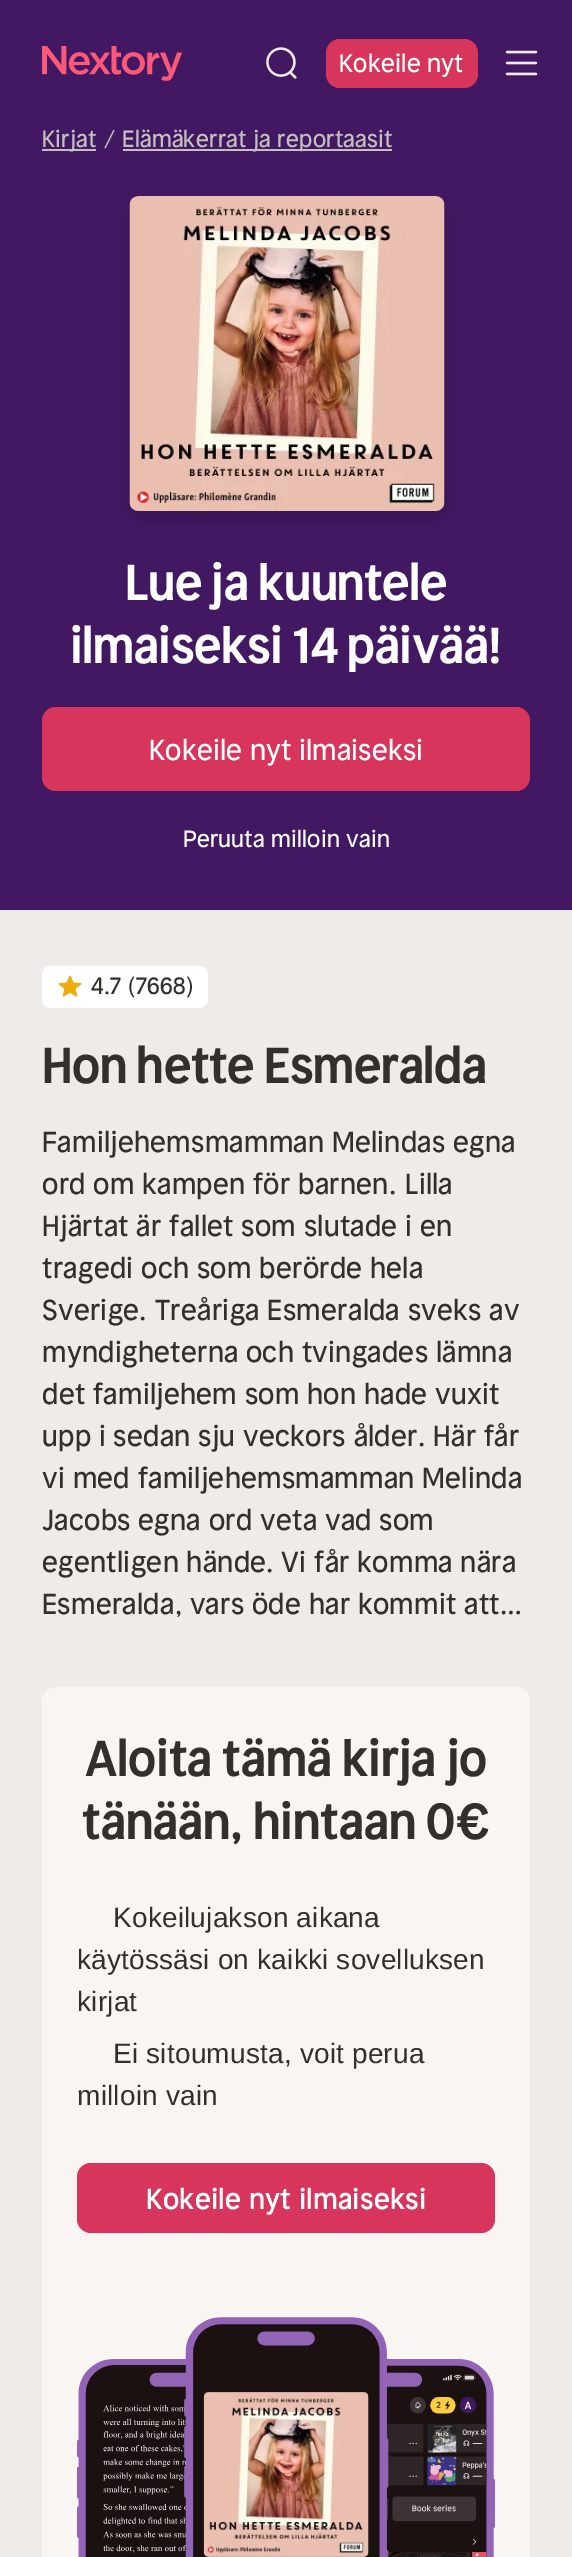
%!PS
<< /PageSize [572 2557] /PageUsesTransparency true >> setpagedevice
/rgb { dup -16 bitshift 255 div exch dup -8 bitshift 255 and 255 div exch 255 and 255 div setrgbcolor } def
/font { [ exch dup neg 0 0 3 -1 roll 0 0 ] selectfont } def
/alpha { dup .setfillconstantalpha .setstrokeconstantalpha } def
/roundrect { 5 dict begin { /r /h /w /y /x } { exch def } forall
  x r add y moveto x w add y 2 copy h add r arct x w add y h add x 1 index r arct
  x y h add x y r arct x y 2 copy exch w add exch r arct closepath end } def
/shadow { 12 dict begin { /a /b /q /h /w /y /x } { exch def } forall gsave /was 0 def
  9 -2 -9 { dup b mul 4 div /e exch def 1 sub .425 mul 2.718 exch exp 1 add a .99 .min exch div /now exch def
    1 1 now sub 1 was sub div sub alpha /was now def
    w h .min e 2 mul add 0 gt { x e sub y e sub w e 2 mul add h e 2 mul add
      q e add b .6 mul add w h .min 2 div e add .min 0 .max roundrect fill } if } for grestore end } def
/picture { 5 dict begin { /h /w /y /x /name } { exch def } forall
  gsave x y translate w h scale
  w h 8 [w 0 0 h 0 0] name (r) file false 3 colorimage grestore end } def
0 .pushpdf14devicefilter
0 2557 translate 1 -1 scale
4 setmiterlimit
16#EEEBE8 rgb
0 0 572 2557 rectfill
16#421862 rgb
0 0 572 910 rectfill
(pic1.raw) 42 46 140 35 picture
(pic2.raw) 266 47 31 32 picture
16#D7355B rgb
326 39 152 49 14 roundrect fill
/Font-Regular 24.5 font
16#FFFFFF rgb
339 72 moveto 0.2 0 (Kokeile nyt) ashow
(pic3.raw) 505 50 33 26 picture
16#C4C0BD rgb
42 149 54 2 rectfill
/Font-Regular 22.75 font
42 147 moveto 0.25 0 (Kirjat) ashow
104 147 moveto 0.25 0 (/) ashow
123 149 269 2 rectfill
122 147 moveto 0.25 0 (Elämäkerrat ja reportaasit) ashow
16#000000 rgb
130 205 315 315 9 9 0.15 shadow
(pic4.raw) 129 196 316 315 picture
/Font-SemiBold 49 font
16#FFFFFF rgb
125 600 moveto -0.5 0 (Lue ja kuuntele) ashow
70 663 moveto -0.5 0 (ilmaiseksi 14 päivää!) ashow
16#D7355B rgb
42 707 488 84 14 roundrect fill
/Font-Regular 28 font
16#FFFFFF rgb
149 760 moveto 0.2 0 (Kokeile nyt ilmaiseksi) ashow
/Font-Regular 22.75 font
183 847 moveto 0.25 0 (Peruuta milloin vain) ashow
42 966 166 42 9 roundrect fill
(pic5.raw) 58 975 24 22 picture
16#32302D rgb
91 994 moveto 0.25 0 (4.7) ashow
128 994 moveto 0.25 0 (\(7668\)) ashow
/Font-SemiBold 49 font
42 1083 moveto -0.5 0 (Hon hette Esmeralda) ashow
/Font-Regular 28 font
42 1152 moveto 0.3 0 (Familjehemsmamman Melindas egna) ashow
42 1194 moveto 0.3 0 (ord om kampen för barnen.) ashow
405 1194 moveto 0.3 0 (Lilla) ashow
42 1236 moveto 0.3 0 (Hjärtat är fallet som slutade i en) ashow
42 1278 moveto 0.3 0 (tragedi och som berörde hela) ashow
42 1320 moveto 0.3 0 (Sverige. Treåriga Esmeralda sveks av) ashow
42 1362 moveto 0.3 0 (myndigheterna och tvingades lämna) ashow
42 1404 moveto 0.3 0 (det familjehem som hon hade vuxit) ashow
42 1446 moveto 0.3 0 (upp i sedan sju veckors ålder. Här får) ashow
42 1488 moveto 0.3 0 (vi med familjehemsmamman Melinda) ashow
42 1530 moveto 0.3 0 (Jacobs egna ord veta vad som) ashow
42 1572 moveto 0.3 0 (egentligen hände. Vi får komma nära) ashow
42 1614 moveto 0.3 0 (Esmeralda, vars öde har kommit att…) ashow
16#F9F5F2 rgb
42 1687 488 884 14 roundrect fill
/Font-SemiBold 49 font
16#32302D rgb
85 1776 moveto -0.2 0 (Aloita tämä kirja jo) ashow
82 1839 moveto -0.2 0 (tänään, hintaan 0€) ashow
/LiberationSans-Regular 28 font
113 1927 moveto 0.2 0 (Kokeilujakson aikana) ashow
77 1969 moveto 0.2 0 (käytössäsi on kaikki sovelluksen) ashow
77 2011 moveto 0.2 0 (kirjat) ashow
113 2063 moveto 0.2 0 (Ei sitoumusta, voit perua) ashow
77 2105 moveto 0.2 0 (milloin vain) ashow
16#D7355B rgb
77 2163 418 70 14 roundrect fill
/Font-Bold 28 font
16#FFFFFF rgb
146 2209 moveto 0.2 0 (Kokeile nyt ilmaiseksi) ashow
(pic6.raw) 77 2317 418 240 picture
.poppdf14devicefilter showpage
